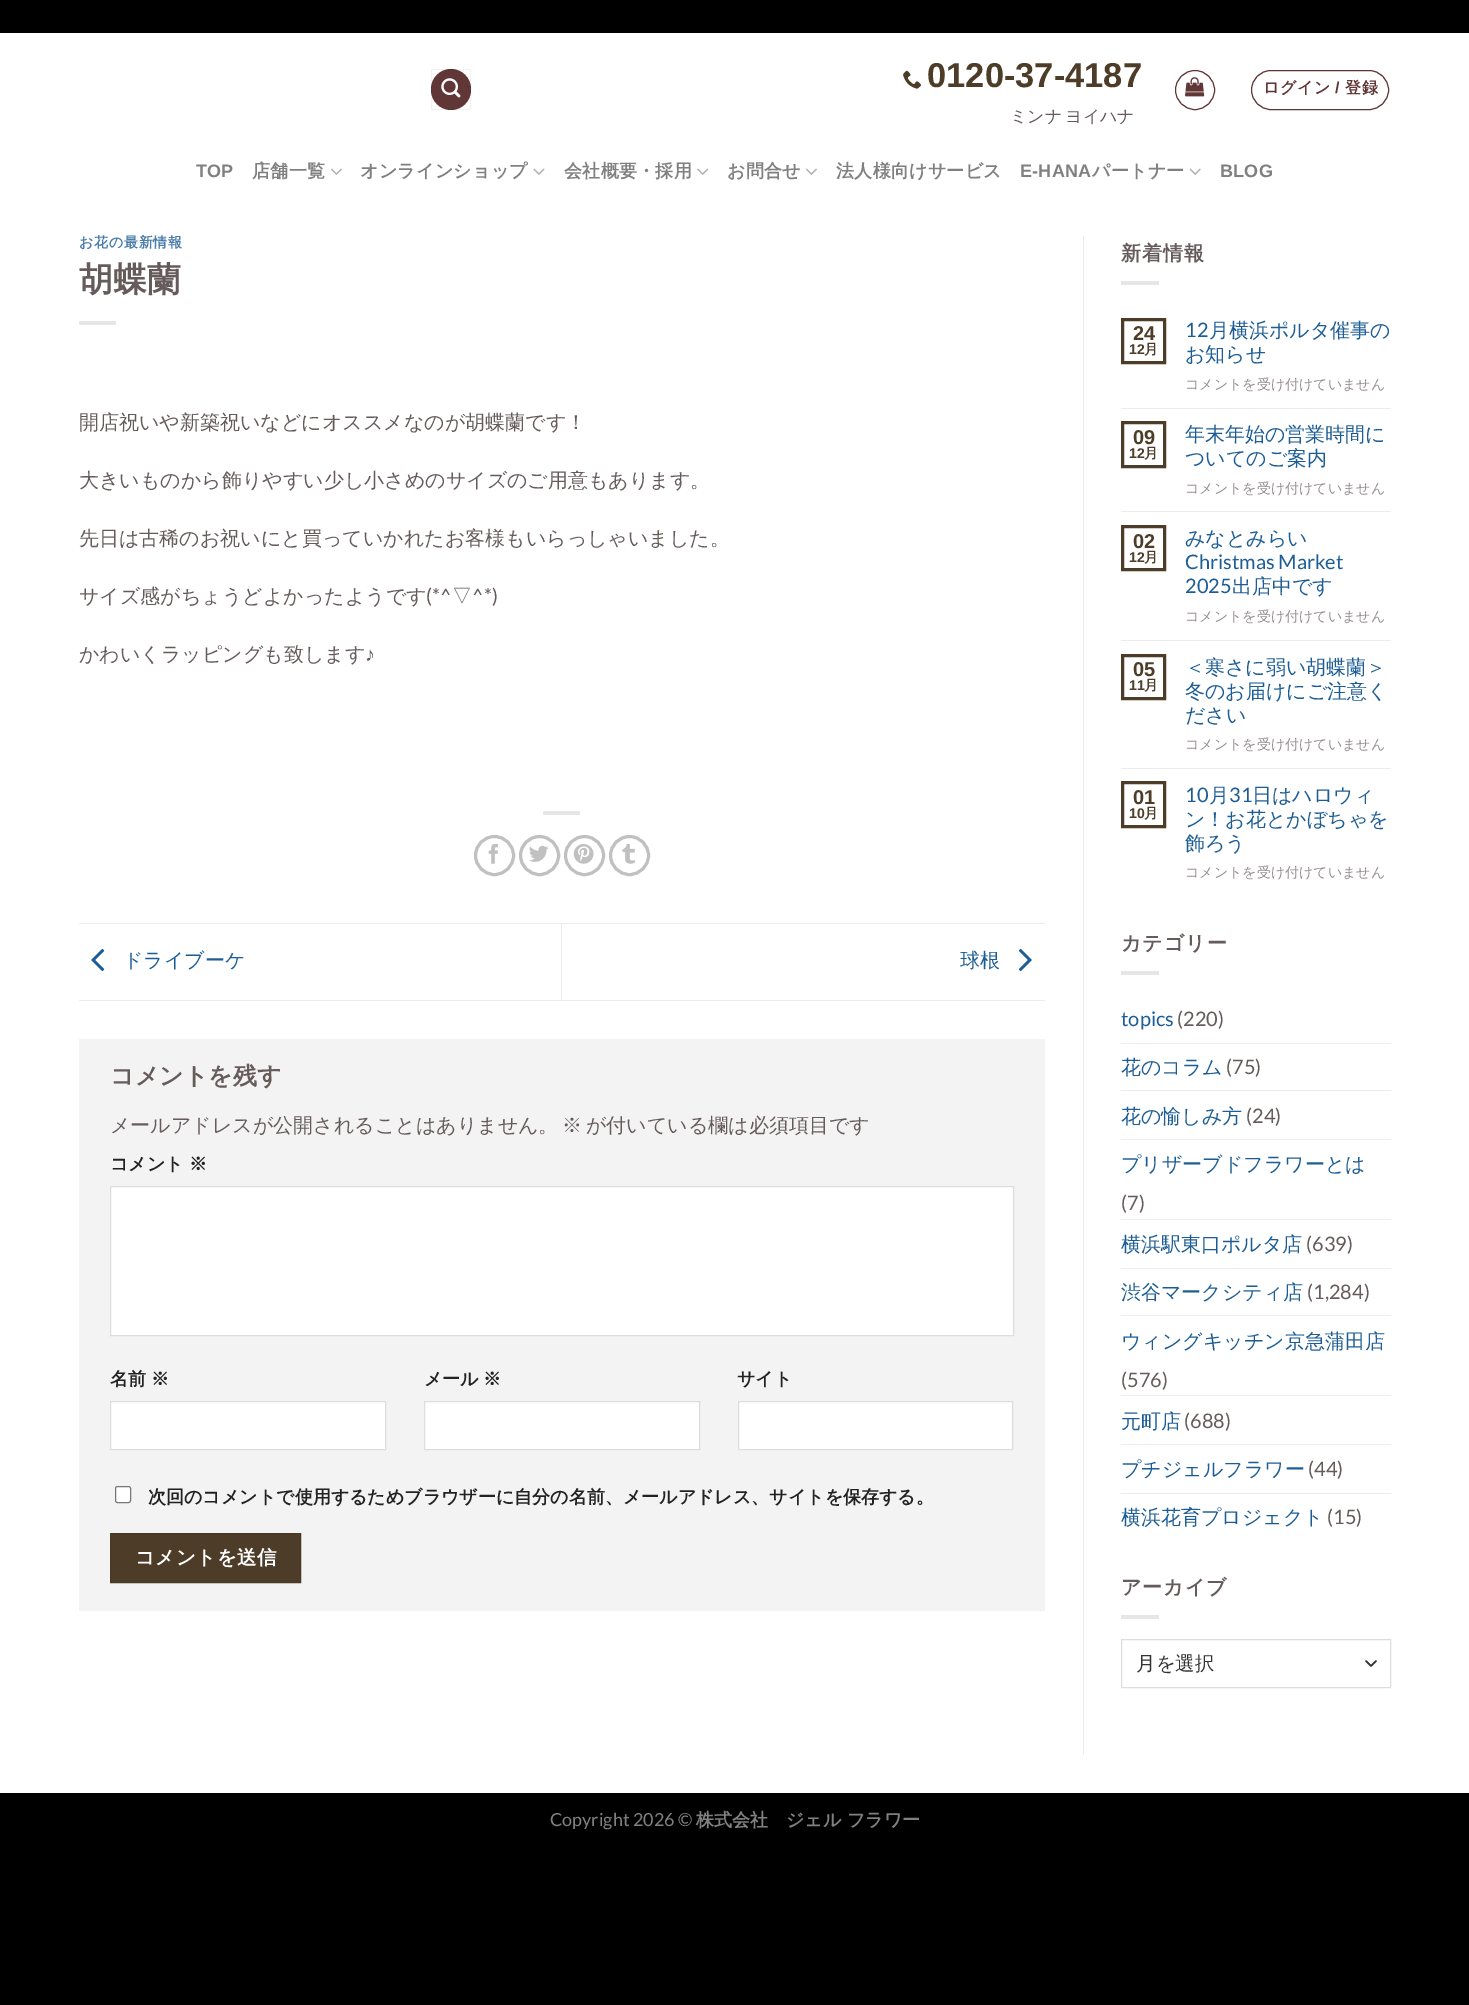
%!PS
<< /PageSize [1469 2005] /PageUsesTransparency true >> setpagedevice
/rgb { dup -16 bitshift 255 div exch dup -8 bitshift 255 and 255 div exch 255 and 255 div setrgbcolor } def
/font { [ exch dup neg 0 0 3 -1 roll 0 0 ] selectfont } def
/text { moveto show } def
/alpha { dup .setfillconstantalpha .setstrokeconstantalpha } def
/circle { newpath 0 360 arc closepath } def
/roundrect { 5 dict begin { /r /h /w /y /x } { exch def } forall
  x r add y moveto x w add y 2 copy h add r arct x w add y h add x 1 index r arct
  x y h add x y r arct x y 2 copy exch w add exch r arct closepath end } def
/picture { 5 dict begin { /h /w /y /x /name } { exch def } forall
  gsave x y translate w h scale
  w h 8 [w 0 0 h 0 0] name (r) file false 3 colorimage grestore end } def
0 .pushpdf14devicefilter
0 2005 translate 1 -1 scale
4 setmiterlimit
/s1 { /LiberationSans-Bold 34.5 font 16#4D3C27 rgb } def
/s2 { /WenQuanYiZenHei-Bold 34 font 16#665B5B rgb } def
/s3 { /WenQuanYiZenHei-Medium 20 font 16#665B5B rgb } def
/s4 { /Lato-Regular 20 font 16#665B5B rgb } def
/s5 { /LiberationSans-Regular 20 font 16#665B5B rgb } def
/s6 { /WenQuanYiZenHei-Medium 20 font 16#1C5D95 rgb } def
/s7 { /WenQuanYiZenHei-Bold 24 font 16#665B5B rgb } def
/s8 { /WenQuanYiZenHei-Bold 18 font 16#222222 rgb } def
/s9 { /LiberationSans-Bold 20 font 16#4D3C27 rgb } def
/s10 { /LiberationSans-Bold 14 font 16#4D3C27 rgb } def
/s11 { /WenQuanYiZenHei-Bold 14 font 16#4D3C27 rgb } def
/s12 { /Lato-Regular 20 font 16#1C5D95 rgb } def
/s13 { /WenQuanYiZenHei-Medium 14 font 16#948C8C rgb } def
/s14 { /WenQuanYiZenHei-Medium 19.5 font 16#333333 rgb } def
/s15 { /Lato-Regular 18 font 16#808080 rgb } def
/s16 { /WenQuanYiZenHei-Bold 18 font 16#808080 rgb } def
16#000000 rgb
0 0 1469 2005 rectfill
16#FFFFFF rgb
0 33 1469 1760 rectfill
16#603636 rgb
431 69 40 41 20 roundrect fill
0.05 alpha
16#000000 rgb
431.5 69.5 39 40 rectstroke
1 alpha
(pic1.raw) 441 78 20 20 picture
(pic2.raw) 903 70 18 19 picture
s1
(0120-37-4187) 927 87 text
/WenQuanYiZenHei-Medium 17 font
16#665B5B rgb
1010 122 moveto -2 0 32 (ミンナ ヨイハナ) widthshow
16#603636 rgb
1195 90 19.5 circle stroke
(pic3.raw) 1185 77 20 20 picture
1251.5 70.5 137 39 19.5 roundrect stroke
/WenQuanYiZenHei-Bold 16 font
1263 93 moveto 0.5 0 (ログイン) ashow
/LiberationSans-Bold 16 font
1335 93 moveto 0.5 0 (/) ashow
/WenQuanYiZenHei-Bold 16 font
1345 93 moveto 0.5 0 (登録) ashow
/LiberationSans-Bold 18 font
16#808080 rgb
196 177 moveto 0.25 0 (TOP) ashow
/WenQuanYiZenHei-Bold 18 font
252 177 moveto 0.25 0 (店舗一覧) ashow
(pic4.raw) 331 168 11 7 picture
360 177 moveto 0.25 0 (オンラインショップ) ashow
(pic5.raw) 533 168 12 7 picture
564 177 moveto 0.25 0 (会社概要・採用) ashow
(pic6.raw) 697 168 12 7 picture
727 177 moveto 0.25 0 (お問合せ) ashow
(pic4.raw) 806 168 11 7 picture
836 177 moveto 0.25 0 (法人様向けサービス) ashow
/LiberationSans-Bold 18 font
1020 177 moveto 0.25 0 (E-HANA) ashow
/WenQuanYiZenHei-Bold 18 font
1092 177 moveto 0.25 0 (パートナー) ashow
(pic7.raw) 1189 168 12 7 picture
/LiberationSans-Bold 18 font
1220 177 moveto 0.25 0 (BLOG) ashow
/WenQuanYiZenHei-Bold 14 font
16#497DAA rgb
79 247 moveto 0.75 0 (お花の最新情報) ashow
s2
(胡蝶蘭) 79 291 text
16#E6E6E6 rgb
79 321 37 4 rectfill
s3
(開店祝いや新築祝いなどにオススメなのが胡蝶蘭です！) 79 429 text
(大きいものから飾りやすい少し小さめのサイズのご用意もあります。) 79 487 text
(先日は古稀のお祝いにと買っていかれたお客様もいらっしゃいました。) 79 545 text
(サイズ感がちょうどよかったようです) 79 603 text
s4
(\(*^) 426 603 text
s3
(▽) 452 603 text
s4
(^*\)) 472 603 text
s3
(かわいくラッピングも致します) 79 661 text
s5
(♪) 365 661 text
16#E6E6E6 rgb
543 811 37 4 rectfill
16#C0C0C0 rgb
3 setlinewidth
494.5 855.5 19 circle stroke
(pic8.raw) 488 843 10 21 picture
539.5 855.5 19 circle stroke
(pic9.raw) 529 845 20 17 picture
584.5 855.5 19 circle stroke
(pic10.raw) 573 844 21 20 picture
629.5 855.5 19 circle stroke
(pic11.raw) 622 843 13 21 picture
16#ECECEC rgb
79 923 966 1 rectfill
79 1000 966 1 rectfill
(pic12.raw) 91 948 14 24 picture
s6
(ドライブーケ) 123 967 text
16#ECECEC rgb
561 924 1 76 rectfill
s6
(球根) 960 967 text
(pic13.raw) 1018 948 14 24 picture
16#F3F3F3 rgb
79 1039 966 572 rectfill
s7
(コメントを残す) 110 1084 text
s3
(メールアドレスが公開されることはありません。) 110 1132 text
(※) 562 1132 text
(が付いている欄は必須項目です) 586 1132 text
s8
(コメント) 110 1170 text
(※) 189 1170 text
16#FFFFFF rgb
110.5 1186.5 moveto 1013.5 1186.5 lineto 1013.5 1335.5 lineto 110.5 1335.5 lineto closepath gsave fill grestore
16#DDDDDD rgb
1 setlinewidth
stroke
s8
(名前) 110 1385 text
(※) 151 1385 text
16#FFFFFF rgb
110.5 1401.5 moveto 385.5 1401.5 lineto 385.5 1449.5 lineto 110.5 1449.5 lineto closepath gsave fill grestore
16#DDDDDD rgb
stroke
s8
(メール) 424 1385 text
(※) 483 1385 text
16#FFFFFF rgb
424.5 1401.5 moveto 699.5 1401.5 lineto 699.5 1449.5 lineto 424.5 1449.5 lineto closepath gsave fill grestore
16#DDDDDD rgb
stroke
s8
(サイト) 737 1385 text
16#FFFFFF rgb
738.5 1401.5 moveto 1012.5 1401.5 lineto 1012.5 1449.5 lineto 738.5 1449.5 lineto closepath gsave fill grestore
16#DDDDDD rgb
stroke
16#FFFFFF rgb
115.5 1486.5 15 16 2 roundrect gsave fill grestore
16#767676 rgb
stroke
s8
(次回のコメントで使用するためブラウザーに自分の名前、メールアドレス、サイトを保存する。) 148 1503 text
16#4D3C27 rgb
110.5 1533.5 moveto 300.5 1533.5 lineto 300.5 1582.5 lineto 110.5 1582.5 lineto closepath gsave fill grestore
16#493925 rgb
stroke
/WenQuanYiZenHei-Bold 19.5 font
16#FFFFFF rgb
135 1564 moveto 0.5 0 (コメントを送信) ashow
16#ECECEC rgb
1083 236 1 1519 rectfill
/WenQuanYiZenHei-Bold 20 font
16#665B5B rgb
1121 260 moveto 1 0 (新着情報) ashow
16#E6E6E6 rgb
1121 281 38 4 rectfill
16#4D3C27 rgb
3 setlinewidth
1122.5 319.5 42 43 rectstroke
s9
(24) 1133 340 text
s10
(12) 1129 354 text
s11
(月) 1144 354 text
s12
(12) 1185 337 text
s6
(月横浜ポルタ催事の) 1209 337 text
(お知らせ) 1185 361 text
s13
(コメントを受け付けていません) 1185 389 text
16#ECECEC rgb
1121 408 270 1 rectfill
16#4D3C27 rgb
1122.5 422.5 42 44 rectstroke
s9
(09) 1133 444 text
s10
(12) 1129 458 text
s11
(月) 1144 458 text
s6
(年末年始の営業時間に) 1185 441 text
(ついてのご案内) 1185 465 text
s13
(コメントを受け付けていません) 1185 493 text
16#ECECEC rgb
1121 511 270 1 rectfill
16#4D3C27 rgb
1122.5 526.5 42 43 rectstroke
s9
(02) 1133 548 text
s10
(12) 1129 562 text
s11
(月) 1144 562 text
s6
(みなとみらい) 1185 545 text
s12
(Christmas Market) 1185 569 text
(2025) 1185 593 text
s6
(出店中です) 1232 593 text
s13
(コメントを受け付けていません) 1185 621 text
16#ECECEC rgb
1121 640 270 1 rectfill
16#4D3C27 rgb
1122.5 655.5 42 43 rectstroke
s9
(05) 1133 676 text
s10
(11) 1129 690 text
s11
(月) 1144 690 text
s6
(＜寒さに弱い胡蝶蘭＞) 1185 674 text
(冬のお届けにご注意く) 1185 698 text
(ださい) 1185 722 text
s13
(コメントを受け付けていません) 1185 749 text
16#ECECEC rgb
1121 768 270 1 rectfill
16#4D3C27 rgb
1122.5 782.5 42 44 rectstroke
s9
(01) 1133 804 text
s10
(10) 1129 818 text
s11
(月) 1144 818 text
s12
(10) 1185 802 text
s6
(月) 1209 802 text
s12
(31) 1229 802 text
s6
(日はハロウィ) 1252 802 text
(ン！お花とかぼちゃを) 1185 826 text
(飾ろう) 1185 850 text
s13
(コメントを受け付けていません) 1185 877 text
/WenQuanYiZenHei-Bold 20 font
16#665B5B rgb
1121 950 moveto 1 0 (カテゴリー) ashow
16#E6E6E6 rgb
1121 971 38 4 rectfill
s12
(topics) 1121 1026 text
s4
(\(220\)) 1177 1026 text
16#ECECEC rgb
1121 1043 270 1 rectfill
s6
(花のコラム) 1121 1074 text
s4
(\(75\)) 1226 1074 text
16#ECECEC rgb
1121 1090 270 1 rectfill
s6
(花の愉しみ方) 1121 1123 text
s4
(\(24\)) 1246 1123 text
16#ECECEC rgb
1121 1139 270 1 rectfill
s6
(プリザーブドフラワーとは) 1121 1171 text
s4
(\(7\)) 1121 1210 text
16#ECECEC rgb
1121 1219 270 1 rectfill
s6
(横浜駅東口ポルタ店) 1121 1251 text
s4
(\(639\)) 1306 1251 text
16#ECECEC rgb
1121 1268 270 1 rectfill
s6
(渋谷マークシティ店) 1121 1299 text
s4
(\(1,284\)) 1307 1299 text
16#ECECEC rgb
1121 1315 270 1 rectfill
s6
(ウィングキッチン京急蒲田店) 1121 1348 text
s4
(\(576\)) 1121 1387 text
16#ECECEC rgb
1121 1395 270 1 rectfill
s6
(元町店) 1121 1428 text
s4
(\(688\)) 1184 1428 text
16#ECECEC rgb
1121 1444 270 1 rectfill
s6
(プチジェルフラワー) 1121 1476 text
s4
(\(44\)) 1308 1476 text
16#ECECEC rgb
1121 1493 270 1 rectfill
s6
(横浜花育プロジェクト) 1121 1524 text
s4
(\(15\)) 1327 1524 text
/WenQuanYiZenHei-Bold 20 font
1121 1594 moveto 1 0 (アーカイブ) ashow
16#E6E6E6 rgb
1121 1615 38 4 rectfill
16#333333 rgb
1.7 setlinewidth
1 setlinecap
1 setlinejoin
1366 1661 moveto 1371 1666 lineto 1376 1661 lineto stroke
16#DDDDDD rgb
1 setlinewidth
0 setlinecap
0 setlinejoin
1121.5 1639.5 269 48 rectstroke
s14
(月を選択) 1136 1670 text
s15
(Copyright 2026 ©) 550 1826 text
s16
(株式会社　ジェル フラワー) 696 1826 text
.poppdf14devicefilter showpage
